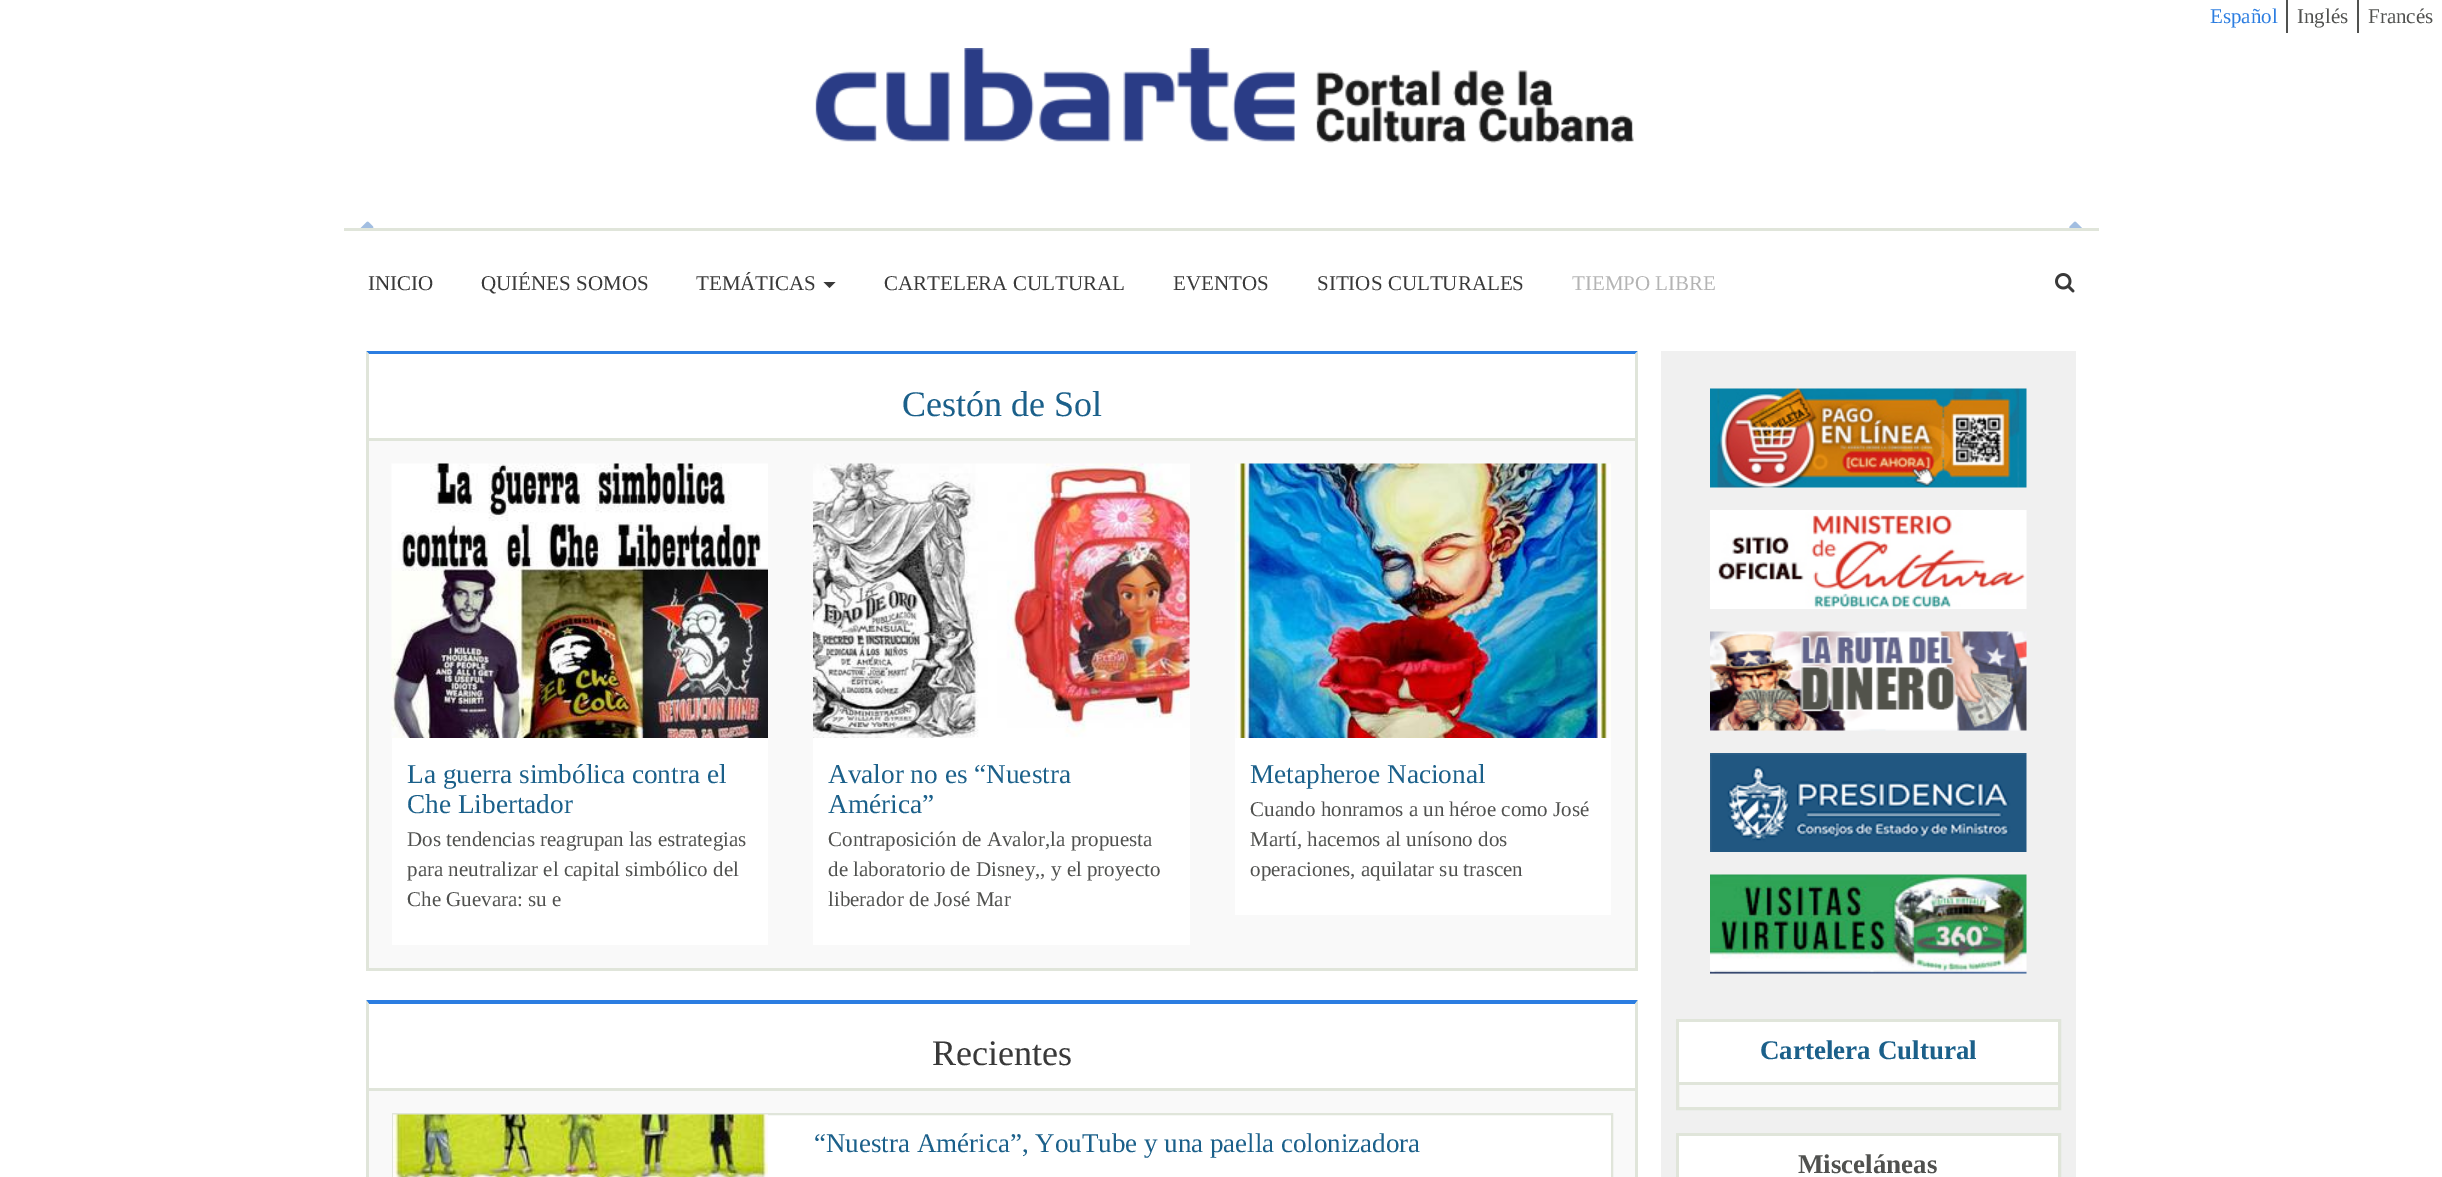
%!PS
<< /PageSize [2442 1177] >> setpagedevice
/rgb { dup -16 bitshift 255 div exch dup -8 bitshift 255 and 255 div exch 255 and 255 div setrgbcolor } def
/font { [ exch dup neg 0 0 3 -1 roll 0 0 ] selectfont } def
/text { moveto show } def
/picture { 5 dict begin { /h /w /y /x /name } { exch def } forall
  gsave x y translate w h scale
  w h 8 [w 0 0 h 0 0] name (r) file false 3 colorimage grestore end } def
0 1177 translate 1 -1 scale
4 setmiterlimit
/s1 { /LiberationSerif-Regular 21 font 16#2B7DE1 rgb } def
/s2 { /LiberationSerif-Regular 21 font 16#50514F rgb } def
/s3 { /LiberationSerif-Regular 21 font 16#393939 rgb } def
/s4 { /LiberationSerif-Regular 21 font 16#B4B4B4 rgb } def
/s5 { /LiberationSerif-Regular 36 font 16#1B608A rgb } def
/s6 { /LiberationSerif-Regular 27.25 font 16#1B608A rgb } def
/s7 { /LiberationSerif-Regular 36 font 16#393939 rgb } def
/s8 { /LiberationSerif-Regular 27 font 16#1B608A rgb } def
/s9 { /LiberationSerif-Bold 27 font 16#1B608A rgb } def
/s10 { /LiberationSerif-Bold 27 font 16#50514F rgb } def
16#FFFFFF rgb
0 0 2442 1177 rectfill
16#50514F rgb
2286 0 2 33 rectfill
s1
(Español) 2210 23 text
16#50514F rgb
2357 0 2 33 rectfill
(Inglés) 2297 23 text
(Francés) 2368 23 text
(pic1.raw) 815 48 819 95 picture
(pic2.raw) 360 221 14 7 picture
(pic3.raw) 2069 221 13 7 picture
16#E0E5DA rgb
344 228 1755 3 rectfill
s3
(INICIO) 368 290 text
(QUIÉNES SOMOS) 481 290 text
(TEMÁTICAS) 696 290 text
823.5 282 moveto 835.5 282 lineto 829.5 288 lineto closepath fill
(CARTELERA CULTURAL) 884 290 text
(EVENTOS) 1173 290 text
(SITIOS CULTURALES) 1317 290 text
s4
(TIEMPO LIBRE) 1572 290 text
(pic4.raw) 2055 273 20 20 picture
16#2B7DE1 rgb
366 351 moveto 1638 351 lineto 1635 354 lineto 369 354 lineto closepath fill
16#E0E5DA rgb
1638 351 moveto 1638 970 lineto 1635 968 lineto 1635 354 lineto closepath fill
366 968 1272 3 rectfill
366 970 moveto 366 351 lineto 369 354 lineto 369 968 lineto closepath fill
369 438 1266 3 rectfill
s5
(Cestón de Sol) 902 416 text
16#F9F9F9 rgb
369 441 1266 527 rectfill
16#FFFFFF rgb
392 738 376 207 rectfill
(pic5.raw) 391 463 377 275 picture
s6
(La guerra simbólica contra el) 407 783 text
(Che Libertador) 407 813 text
s2
(Dos tendencias reagrupan las estrategias) 407 846 text
(para neutralizar el capital simbólico del) 407 876 text
(Che Guevara: su e) 407 906 text
16#FFFFFF rgb
813 464 377 481 rectfill
(pic6.raw) 813 463 377 275 picture
s6
(Avalor no es “Nuestra) 828 783 text
(América”) 828 813 text
s2
(Contraposición de Avalor,la propuesta) 828 846 text
(de laboratorio de Disney,, y el proyecto) 828 876 text
(liberador de José Mar) 828 906 text
16#FFFFFF rgb
1235 738 376 177 rectfill
(pic7.raw) 1235 463 376 275 picture
s6
(Metapheroe Nacional) 1250 783 text
s2
(Cuando honramos a un héroe como José) 1250 816 text
(Martí, hacemos al unísono dos) 1250 846 text
(operaciones, aquilatar su trascen) 1250 876 text
16#2B7DE1 rgb
366 1000 moveto 1638 1000 lineto 1635 1004 lineto 369 1004 lineto closepath fill
16#E0E5DA rgb
1638 1000 moveto 1638 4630 lineto 1635 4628 lineto 1635 1004 lineto closepath fill
366 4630 moveto 366 1000 lineto 369 1004 lineto 369 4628 lineto closepath fill
369 1088 1266 3 rectfill
s7
(Recientes) 932 1065 text
16#F9F9F9 rgb
369 1091 1266 86 rectfill
16#FFFFFF rgb
768 1115 843 62 rectfill
16#E0E5DA rgb
2 setlinewidth
393 1114 1219 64 rectstroke
(pic8.raw) 393 1114 375 63 picture
s8
(“Nuestra América”, YouTube y una paella colonizadora) 814 1152 text
16#F0F0F0 rgb
1661 351 415 826 rectfill
(pic9.raw) 1710 388 317 100 picture
(pic10.raw) 1710 510 317 99 picture
(pic11.raw) 1710 631 317 100 picture
(pic12.raw) 1710 753 317 99 picture
(pic13.raw) 1710 874 317 100 picture
16#F9F9F9 rgb
1679 1085 379 22 rectfill
16#E0E5DA rgb
3 setlinewidth
1677.5 1020.5 382 88 rectstroke
16#FFFFFF rgb
1679 1022 379 60 rectfill
16#E0E5DA rgb
1679 1082 379 3 rectfill
s9
(Cartelera Cultural) 1760 1059 text
16#E0E5DA rgb
1677.5 1134.5 382 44 rectstroke
16#FFFFFF rgb
1679 1136 379 41 rectfill
s10
(Misceláneas) 1798 1173 text
showpage
